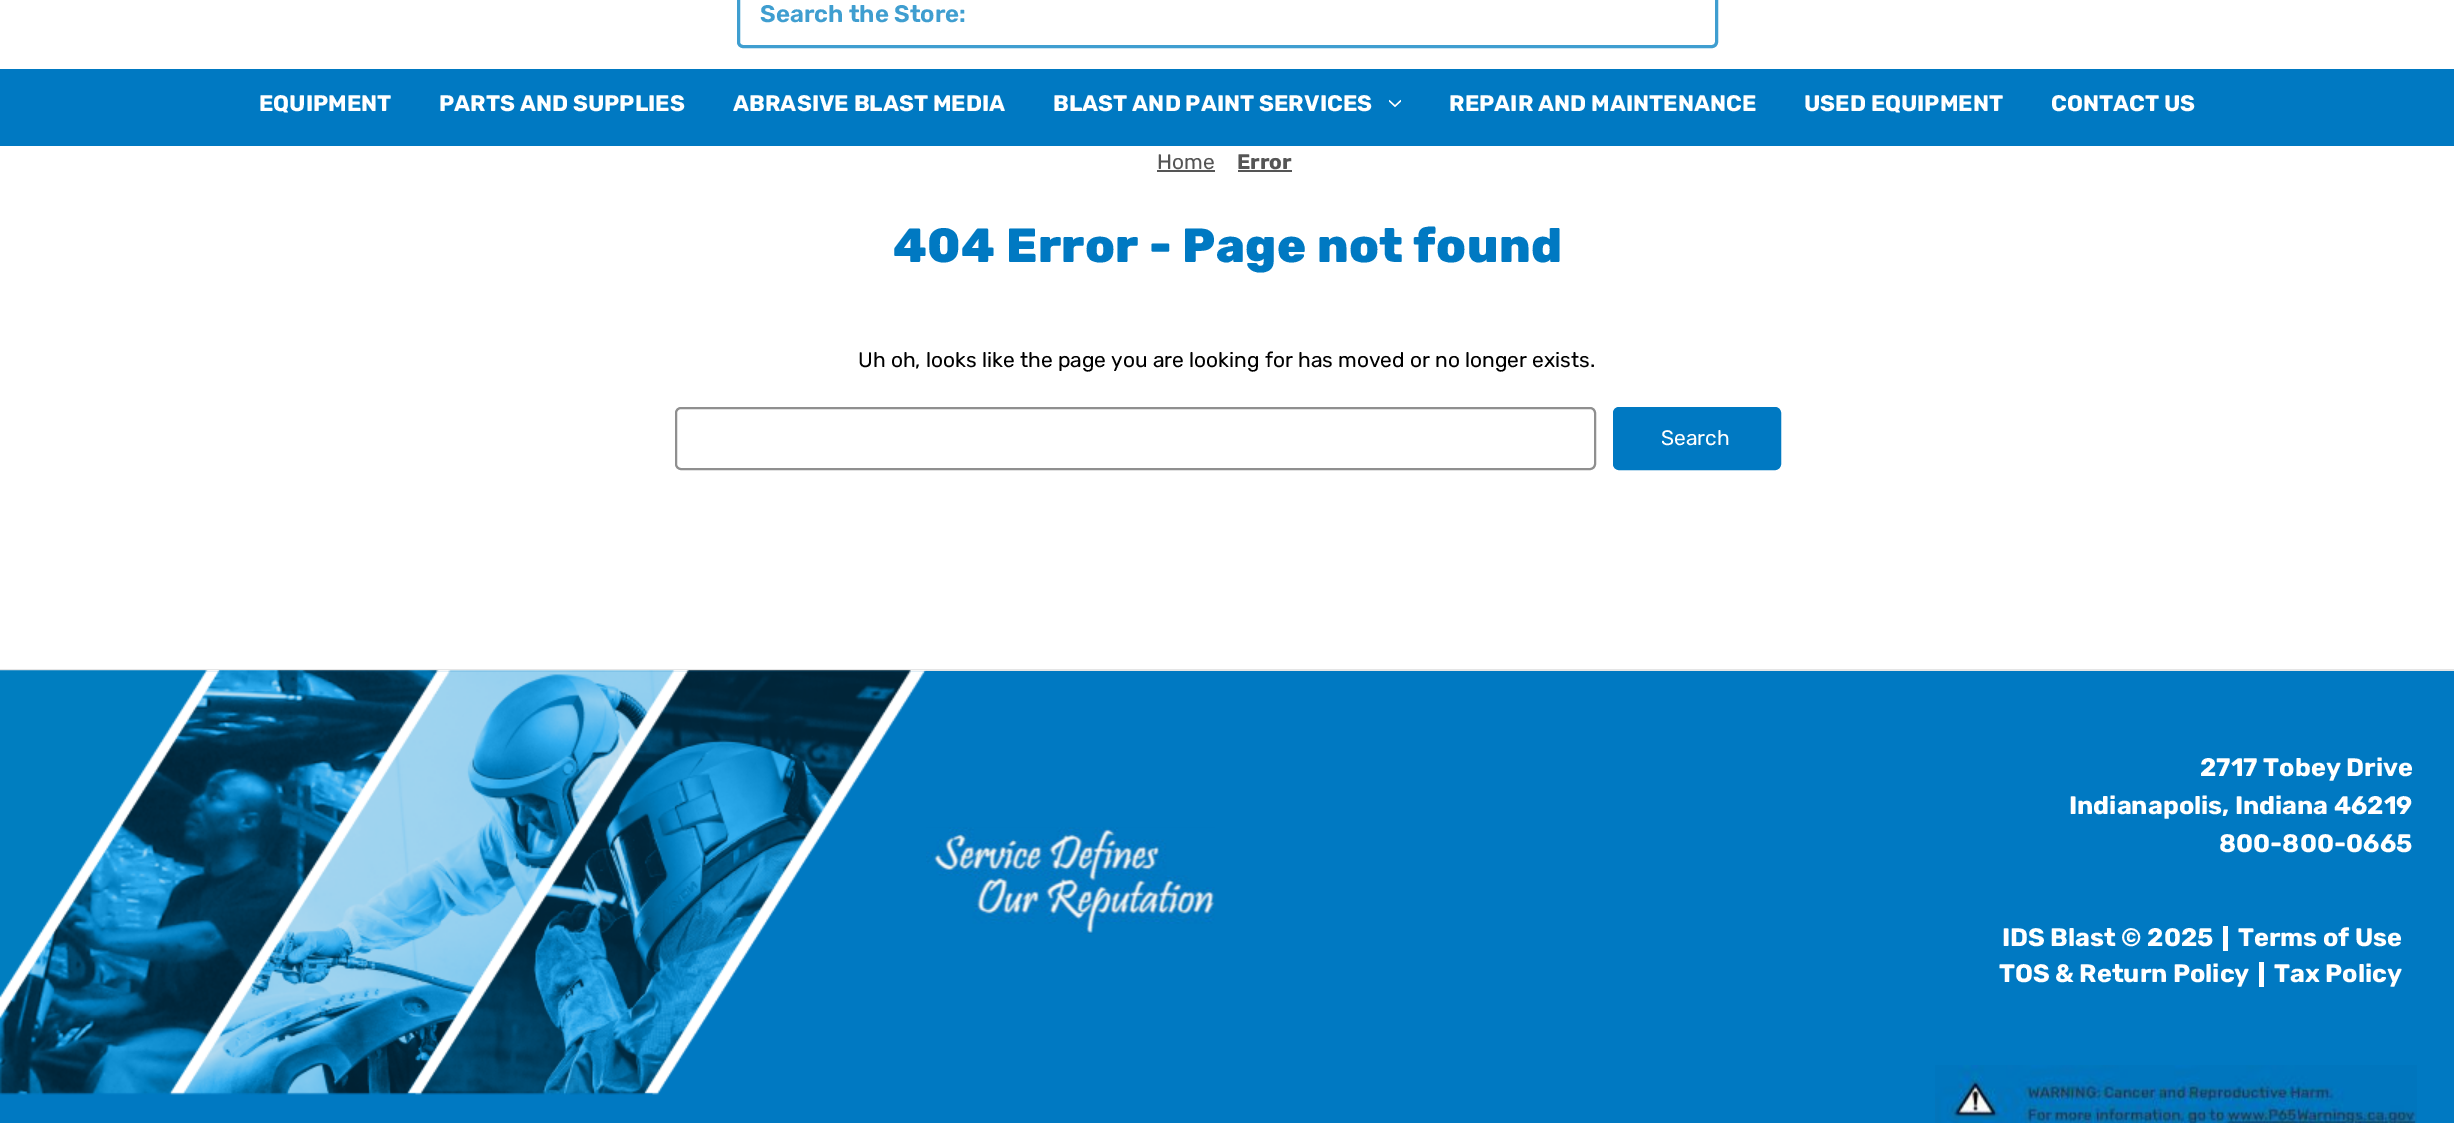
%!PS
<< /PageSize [2454 1123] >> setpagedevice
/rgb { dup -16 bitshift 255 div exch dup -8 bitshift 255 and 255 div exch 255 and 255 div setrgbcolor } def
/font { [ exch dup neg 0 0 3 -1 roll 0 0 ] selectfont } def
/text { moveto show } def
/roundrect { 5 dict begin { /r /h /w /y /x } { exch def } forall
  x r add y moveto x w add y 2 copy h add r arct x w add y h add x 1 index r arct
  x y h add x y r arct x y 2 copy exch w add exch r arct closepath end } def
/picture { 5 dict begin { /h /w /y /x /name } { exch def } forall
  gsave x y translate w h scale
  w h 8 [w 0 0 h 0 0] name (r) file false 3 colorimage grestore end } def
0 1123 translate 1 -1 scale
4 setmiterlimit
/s1 { /Rubik-SemiBold 24 font 16#3F9ED0 rgb } def
/s2 { /Rubik-Bold 22.5 font 16#FFFFFF rgb } def
/s3 { /Rubik-Regular 21 font 16#555555 rgb } def
/s4 { /Rubik-Bold 21 font 16#555555 rgb } def
/s5 { /Rubik-Regular 21 font 16#000000 rgb } def
/s6 { /Rubik-Regular 21 font 16#FFFFFF rgb } def
/s7 { /Rubik-Bold 25.25 font 16#FFFFFF rgb } def
16#FFFFFF rgb
0 0 2454 1123 rectfill
16#3F9ED0 rgb
3 setlinewidth
738.5 -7.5 978 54 4.5 roundrect stroke
s1
(Search the Store:) 760 22 text
16#0079C2 rgb
0 69 2454 77 rectfill
s2
(EQUIPMENT) 259 111 text
(PARTS AND SUPPLIES) 439 111 text
(ABRASIVE BLAST MEDIA) 733 111 text
(BLAST AND PAINT SERVICES) 1053 111 text
(pic1.raw) 1389 99 12 9 picture
(REPAIR AND MAINTENANCE) 1449 111 text
(USED EQUIPMENT) 1804 111 text
(CONTACT US) 2051 111 text
s3
(Home) 1157 169 text
1157 170 58 2 rectfill
s4
(Error) 1237 169 text
1238 170 54 2 rectfill
/Rubik-ExtraBold 48 font
16#0079C2 rgb
893 262 moveto 0.4 0 (404 Error - Page not found) ashow
s5
(Uh oh, looks like the page you are looking for has moved or no longer exists.) 858 367 text
16#8F8F8F rgb
2 setlinewidth
676 408 919 61 5 roundrect stroke
16#0079C2 rgb
1614 408 166 61 5 roundrect gsave fill grestore
stroke
s6
(Search) 1661 445 text
16#0079C2 rgb
0 671 2454 452 rectfill
16#E5E5E5 rgb
0 669 2454 2 rectfill
(pic2.raw) 0 670 926 425 picture
(pic3.raw) 926 827 289 107 picture
s7
(2717 Tobey Drive) 2200 776 text
(Indianapolis, Indiana 46219) 2069 814 text
(800-800-0665) 2219 852 text
2223 926 5 25 rectfill
(IDS Blast © 2025) 2002 946 text
(Terms of Use) 2238 946 text
2259 962 5 25 rectfill
(TOS & Return Policy) 1999 982 text
(Tax Policy) 2274 982 text
(pic4.raw) 1935 1065 482 58 picture
showpage
